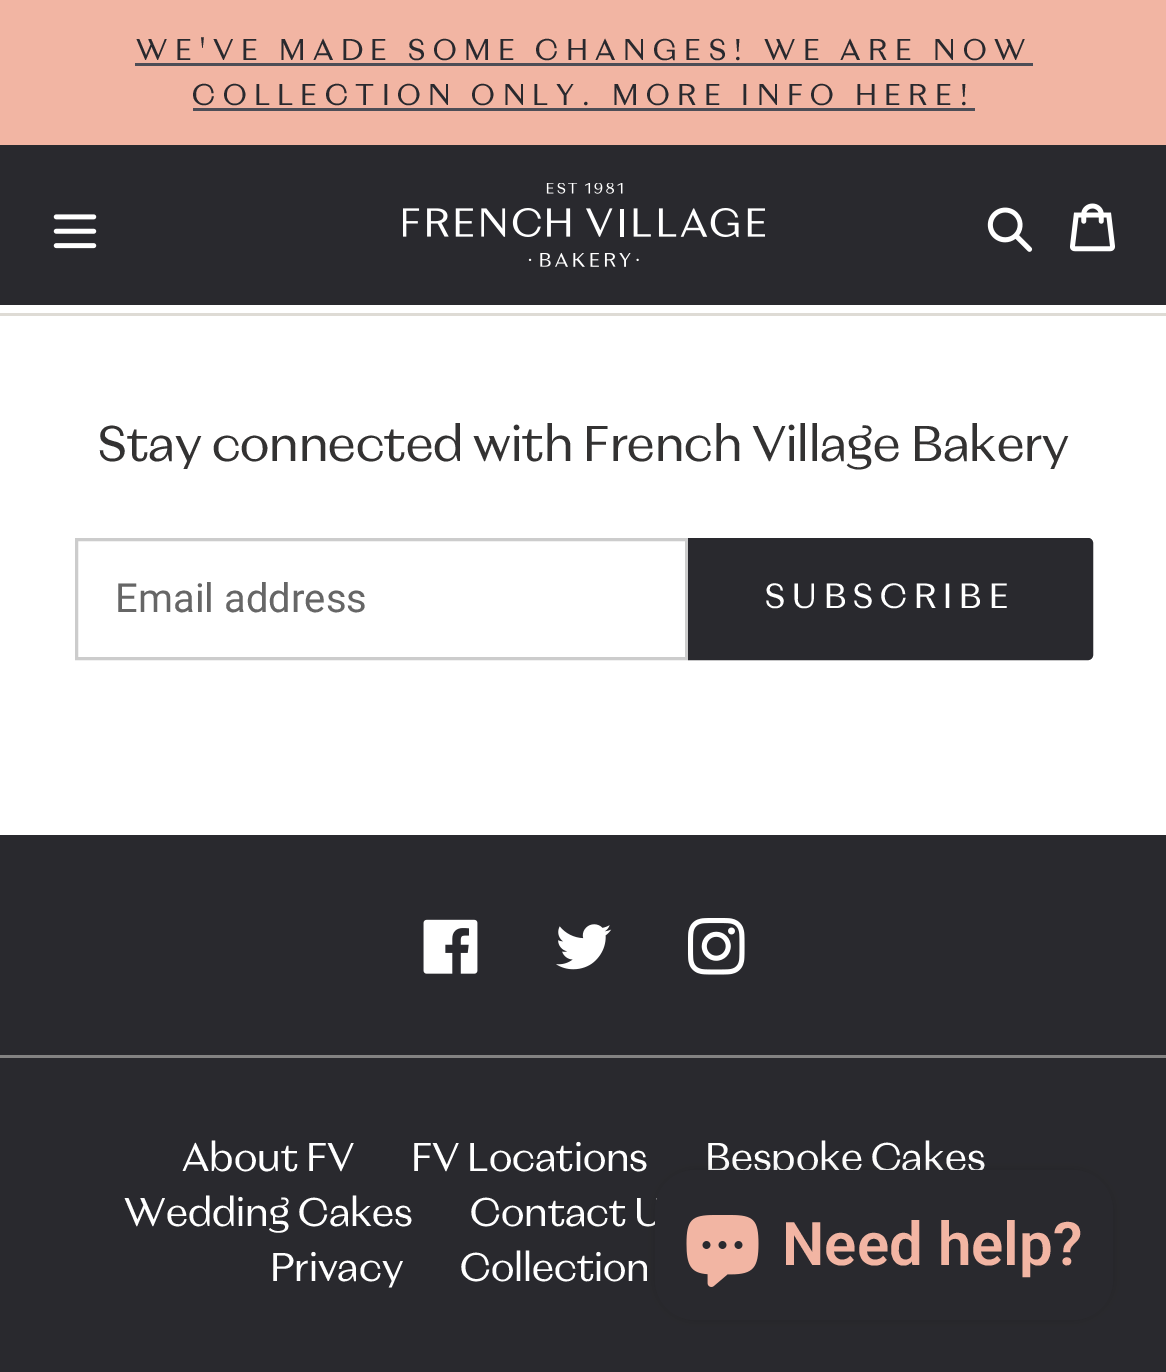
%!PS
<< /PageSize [1166 1372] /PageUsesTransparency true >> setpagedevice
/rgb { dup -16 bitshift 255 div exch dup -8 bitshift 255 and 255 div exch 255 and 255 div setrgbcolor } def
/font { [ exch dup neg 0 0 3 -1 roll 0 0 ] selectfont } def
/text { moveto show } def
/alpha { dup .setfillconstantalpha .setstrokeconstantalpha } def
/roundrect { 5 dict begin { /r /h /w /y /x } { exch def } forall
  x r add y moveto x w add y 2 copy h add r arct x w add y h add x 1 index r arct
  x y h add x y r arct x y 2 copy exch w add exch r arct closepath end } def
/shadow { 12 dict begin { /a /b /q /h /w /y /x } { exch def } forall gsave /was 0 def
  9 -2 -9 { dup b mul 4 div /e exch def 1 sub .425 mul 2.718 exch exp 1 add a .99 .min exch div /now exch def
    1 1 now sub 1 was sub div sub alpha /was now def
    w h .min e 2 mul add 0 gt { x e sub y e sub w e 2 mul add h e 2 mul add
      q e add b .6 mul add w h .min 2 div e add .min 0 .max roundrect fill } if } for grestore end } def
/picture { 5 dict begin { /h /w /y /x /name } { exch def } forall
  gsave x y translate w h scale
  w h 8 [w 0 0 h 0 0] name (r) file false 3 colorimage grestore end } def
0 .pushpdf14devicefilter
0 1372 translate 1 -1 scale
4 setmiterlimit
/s1 { /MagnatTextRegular-Regular 50 font 16#333232 rgb } def
/s2 { /Roboto-Regular 40 font 16#666666 rgb } def
/s3 { /MagnatTextRegular-Regular 40 font 16#FFFFFF rgb } def
/s4 { /Roboto-SemiBold 60 font 16#F2B5A3 rgb } def
16#FFFFFF rgb
0 0 1166 1372 rectfill
16#29292E rgb
0 145 1166 160 rectfill
16#F2B5A3 rgb
0 0 1166 145 rectfill
/MagnatTextRegular-Regular 30 font
16#29292E rgb
136 60 moveto 7.5 0 (WE'VE MADE SOME CHANGES! WE ARE NOW) ashow
16#4D4D56 rgb
135 63 898 3 rectfill
16#29292E rgb
192 105 moveto 7.5 0 (COLLECTION ONLY. MORE INFO HERE!) ashow
16#4D4D56 rgb
193 108 782 3 rectfill
(pic1.raw) 53 214 44 35 picture
(pic2.raw) 403 183 362 84 picture
(pic3.raw) 987 207 46 45 picture
(pic4.raw) 1070 203 45 49 picture
16#DEDBD5 rgb
0 313 1166 3 rectfill
s1
(Stay connected with French Village Bakery) 98 461 text
16#CCCCCC rgb
3 setlinewidth
76.5 539.5 610 119 rectstroke
s2
(Email address) 115 612 text
16#29292E rgb
689.5 539.5 moveto 1088 539.5 lineto 1090 539.5 1091.5 541 1091.5 543 curveto 1091.5 655 lineto 1091.5 657 1090 658.5 1088 658.5 curveto 689.5 658.5 lineto closepath gsave fill grestore
stroke
/MagnatTextRegular-Regular 35 font
16#FFFFFF rgb
765 608 moveto 7 0 (SUBSCRIBE) ashow
16#29292E rgb
0 835 1166 537 rectfill
16#838282 rgb
0 1055 1166 3 rectfill
(pic5.raw) 423 919 55 55 picture
(pic6.raw) 556 924 56 46 picture
(pic7.raw) 688 918 57 57 picture
s3
(About FV) 182 1171 text
(FV Locations) 411 1171 text
(Bespoke Cakes) 705 1171 text
(Wedding Cakes) 124 1226 text
(Contact U) 470 1226 text
(Privacy) 270 1281 text
(Collection) 460 1281 text
16#000000 rgb
655 1170 458 150 40 6 0.15 shadow
16#29292E rgb
655 1170 458 150 40 roundrect fill
(pic8.raw) 686 1215 73 72 picture
s4
(Need help?) 782 1265 text
.poppdf14devicefilter showpage
